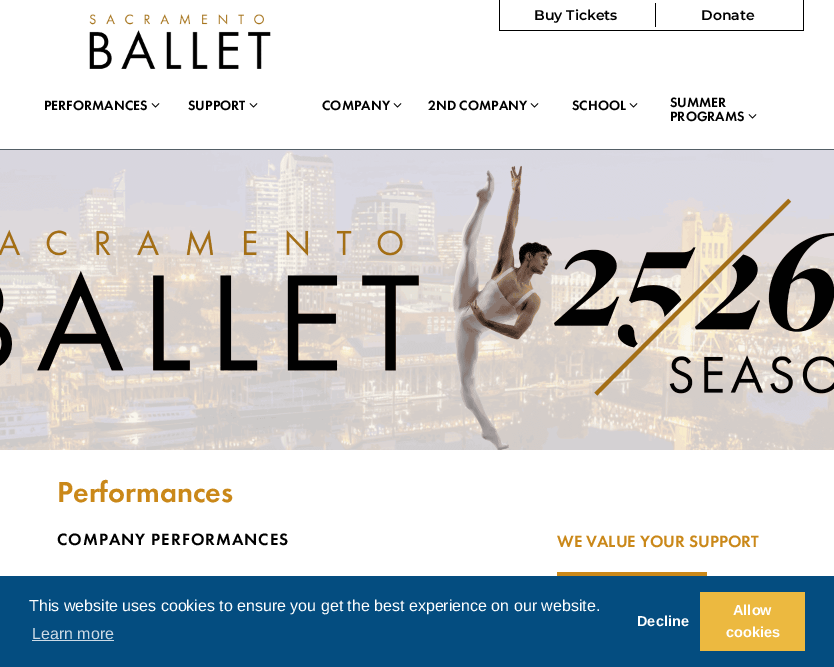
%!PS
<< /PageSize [834 667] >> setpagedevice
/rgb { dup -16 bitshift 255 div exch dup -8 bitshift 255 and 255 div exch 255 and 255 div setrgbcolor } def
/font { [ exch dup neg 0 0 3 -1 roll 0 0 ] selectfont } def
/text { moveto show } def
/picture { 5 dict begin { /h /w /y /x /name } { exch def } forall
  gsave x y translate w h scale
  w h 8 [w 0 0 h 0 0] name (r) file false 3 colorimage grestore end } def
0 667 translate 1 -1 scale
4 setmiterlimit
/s1 { /Montserrat-SemiBold 14 font 16#000000 rgb } def
/s2 { /FuturaPT-Medium 14 font 16#000000 rgb } def
/s3 { /FuturaPT-Medium 30 font 16#CA8819 rgb } def
/s4 { /FuturaPT-Medium 17 font 16#CA8819 rgb } def
/s5 { /LiberationSans-Regular 16 font 16#FFFFFF rgb } def
/s6 { /LiberationSans-Regular 16 font 16#CDDBE6 rgb } def
/s7 { /LiberationSans-Bold 14.5 font 16#FFFFFF rgb } def
16#FFFFFF rgb
0 0 834 667 rectfill
16#545F66 rgb
0 149 834 1 rectfill
(pic1.raw) 89 14 182 55 picture
16#000000 rgb
803 0 1 31 rectfill
499 30 305 1 rectfill
499 0 1 31 rectfill
s1
(Buy Tickets) 534 20 text
655 3 1 24 rectfill
(Donate) 701 20 text
s2
(PERFORMANCES) 44 110 text
(pic2.raw) 151 103 9 5 picture
(SUPPORT) 188 110 text
(pic2.raw) 249 103 9 5 picture
(COMPANY) 322 110 text
(pic2.raw) 393 103 9 5 picture
(2ND COMPANY) 428 110 text
(pic2.raw) 530 103 9 5 picture
(SCHOOL) 572 110 text
(pic2.raw) 629 103 9 5 picture
(SUMMER) 670 107 text
(PROGRAMS) 670 121 text
(pic2.raw) 748 114 9 5 picture
(pic3.raw) 0 150 834 300 picture
s3
(Performances) 57 502 text
/FuturaPT-Medium 17 font
16#000000 rgb
57 545 moveto 1 0 (COMPANY PERFORMANCES) ashow
s4
(WE VALUE YOUR SUPPORT) 557 547 text
557 572 150 4 rectfill
16#044D80 rgb
0 576 834 91 rectfill
s5
(This website uses cookies to ensure you get the best experience on our website.) 29 611 text
s6
(Learn more) 32 639 text
32 640 82 1 rectfill
s7
(Decline) 637 626 text
16#ECB940 rgb
700 592 105 59 rectfill
s7
(Allow) 733 615 text
(cookies) 726 637 text
showpage
